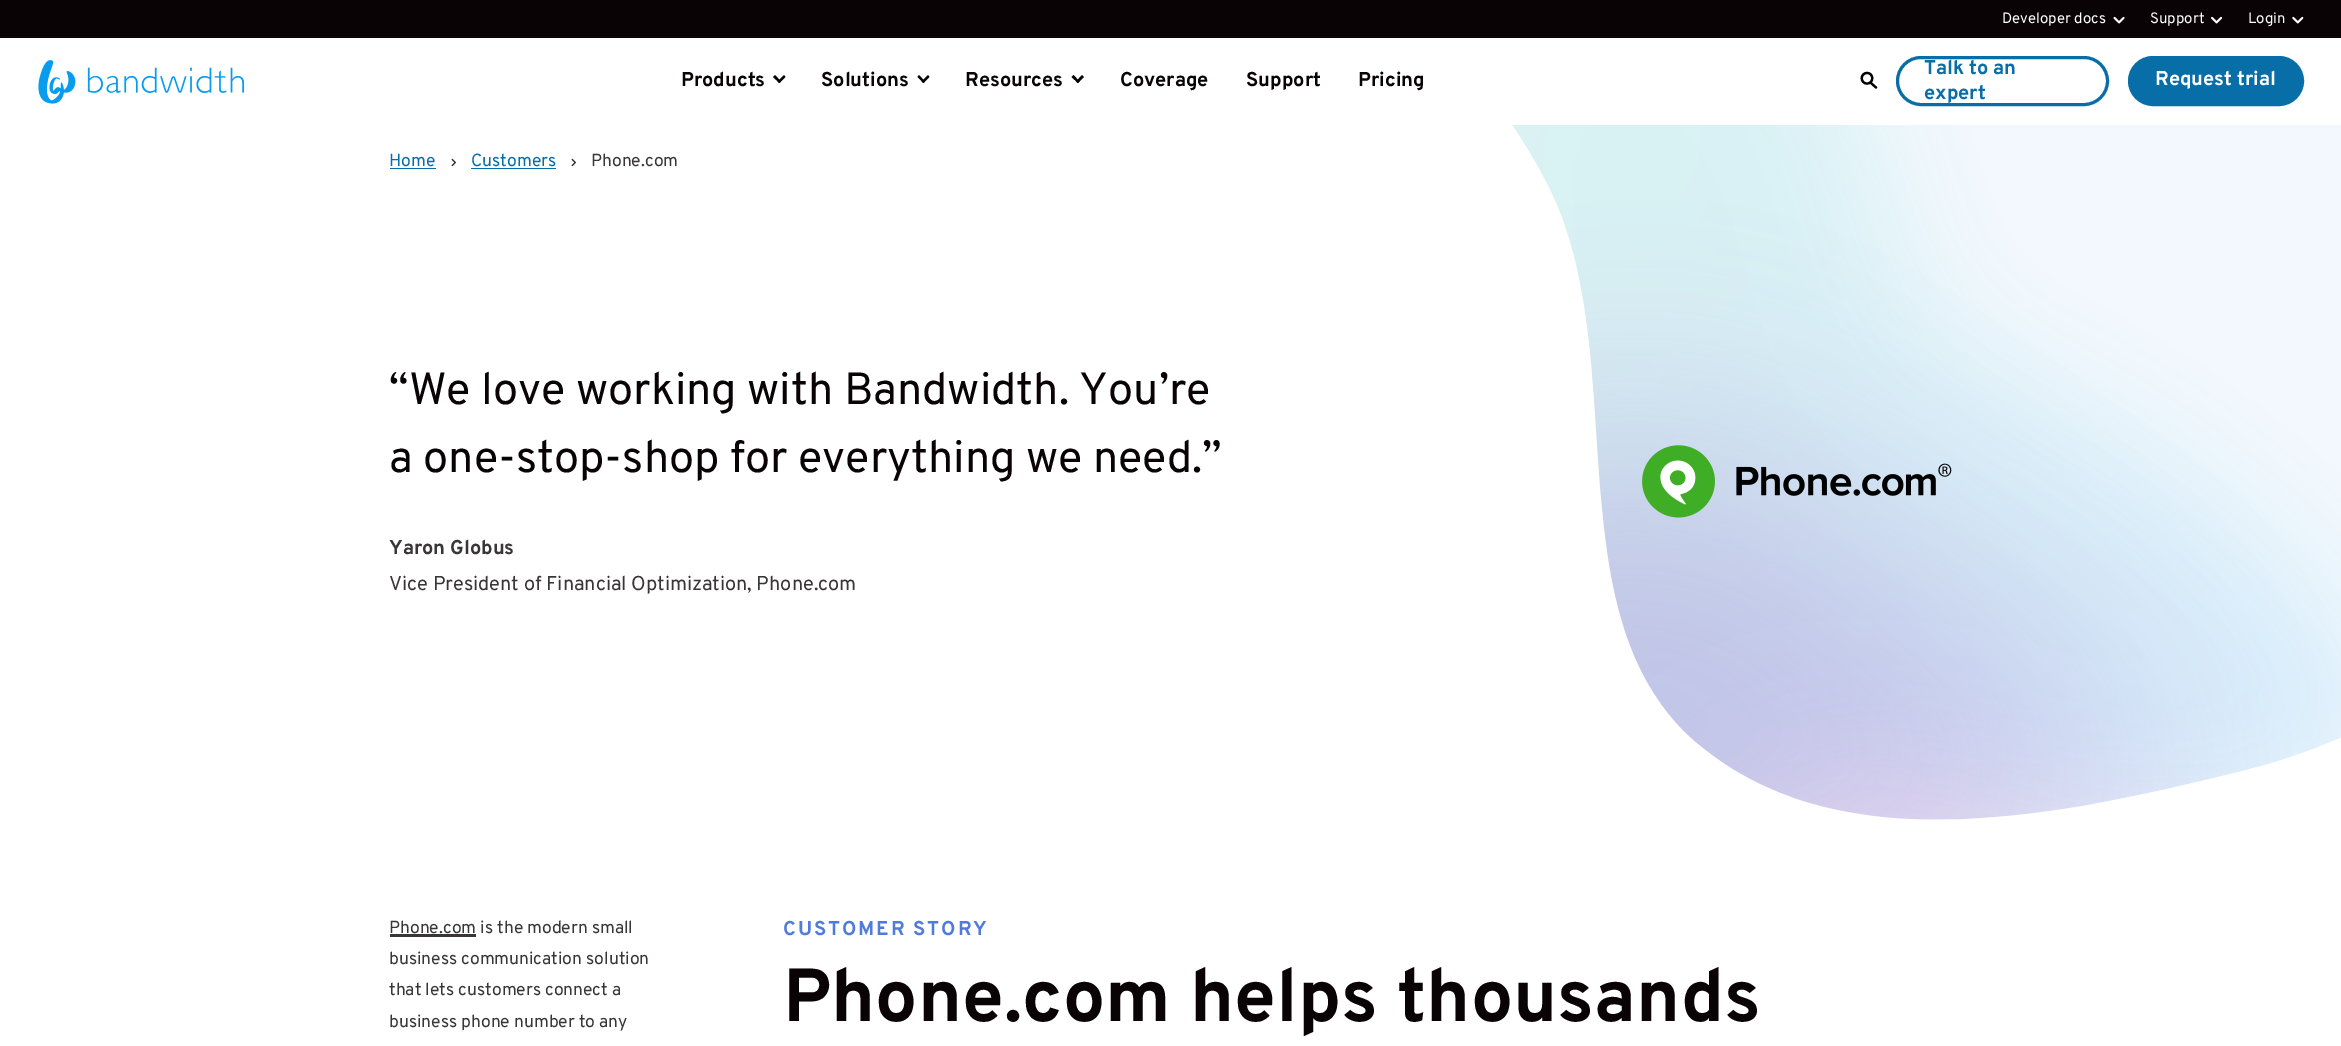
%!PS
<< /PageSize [2341 1046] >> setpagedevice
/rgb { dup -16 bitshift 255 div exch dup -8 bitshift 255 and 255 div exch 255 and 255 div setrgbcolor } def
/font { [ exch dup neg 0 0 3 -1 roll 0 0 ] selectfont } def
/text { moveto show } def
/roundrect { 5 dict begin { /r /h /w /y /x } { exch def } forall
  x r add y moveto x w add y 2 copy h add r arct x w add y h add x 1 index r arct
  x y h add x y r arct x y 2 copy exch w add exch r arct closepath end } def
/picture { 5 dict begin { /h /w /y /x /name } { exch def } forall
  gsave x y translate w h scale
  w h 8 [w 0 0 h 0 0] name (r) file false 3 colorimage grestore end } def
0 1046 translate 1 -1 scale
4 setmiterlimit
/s1 { /Overpass-Regular 15 font 16#FFFFFF rgb } def
/s2 { /Overpass-Bold 20 font 16#090306 rgb } def
/s3 { /Overpass-Bold 20 font 16#076EA8 rgb } def
/s4 { /Overpass-Bold 20 font 16#FFFFFF rgb } def
/s5 { /Overpass-Regular 17.5 font 16#076EA8 rgb } def
/s6 { /Overpass-Regular 17.5 font 16#3A3537 rgb } def
/s7 { /Overpass-Regular 45 font 16#090306 rgb } def
/s8 { /Overpass-Bold 20 font 16#3A3537 rgb } def
/s9 { /Overpass-Regular 20 font 16#3A3537 rgb } def
/s10 { /Overpass-Bold 75 font 16#090306 rgb } def
16#FFFFFF rgb
0 0 2341 1046 rectfill
16#090306 rgb
0 0 2341 38 rectfill
s1
(Developer docs) 2002 23 text
(pic1.raw) 2113 16 12 8 picture
(Support) 2150 23 text
(pic2.raw) 2211 16 12 8 picture
(Login) 2248 23 text
(pic3.raw) 2292 16 12 8 picture
(pic4.raw) 38 60 207 44 picture
s2
(Products) 681 86 text
785.5 77 moveto 779.5 83 lineto 777.5 81.5 lineto 784 75 lineto closepath fill
781 81.5 moveto 779.5 83 lineto 773 77 lineto 775 75 lineto closepath fill
(Solutions) 821 86 text
929.5 77 moveto 923.5 83 lineto 921.5 81.5 lineto 928 75 lineto closepath fill
925 81.5 moveto 923.5 83 lineto 917.5 77 lineto 919 75 lineto closepath fill
(Resources) 965 86 text
1084 77 moveto 1078 83 lineto 1076 81.5 lineto 1082 75 lineto closepath fill
1079.5 81.5 moveto 1078 83 lineto 1071.5 77 lineto 1073.5 75 lineto closepath fill
(Coverage) 1120 86 text
(Support) 1246 86 text
(Pricing) 1358 86 text
16#000000 rgb
2.2 setlinewidth
1 setlinecap
1867 83.5 moveto 1874 83.5 1874 73 1867 73 curveto 1860 73 1860 83.5 1867 83.5 curveto closepath 1871.5 83.5 moveto 1876 87.5 lineto stroke
16#076EA8 rgb
3 setlinewidth
0 setlinecap
1897.5 57.5 210 47 23.5 roundrect stroke
(Talk to an) 1924 74 text
(expert) 1924 99 text
2129.5 57.5 173 47 23.5 roundrect gsave fill grestore
stroke
s4
(Request trial) 2155 85 text
s5
(Home) 389 166 text
390 168 46 1 rectfill
(pic5.raw) 451 158 5 9 picture
(Customers) 471 166 text
471 168 85 1 rectfill
(pic5.raw) 571 158 5 9 picture
s6
(Phone.com) 591 166 text
s7
(“We love working with Bandwidth. You’re) 389 404 text
(a one-stop-shop for everything we need.”) 389 472 text
s8
(Yaron Globus) 389 554 text
s9
(Vice President of Financial Optimization, Phone.com) 389 590 text
(pic7.raw) 1512 125 829 695 picture
(pic6.raw) 1642 445 310 73 picture
s6
(Phone.com is the modern small) 389 933 text
390 934 86 3 rectfill
(business communication solution) 389 964 text
(that lets customers connect a) 389 995 text
(business phone number to any) 389 1027 text
/Overpass-Bold 20 font
16#517BDA rgb
783 935 moveto 1.9 0 (CUSTOMER STORY) ashow
s10
(Phone.com helps thousands) 783 1021 text
showpage
